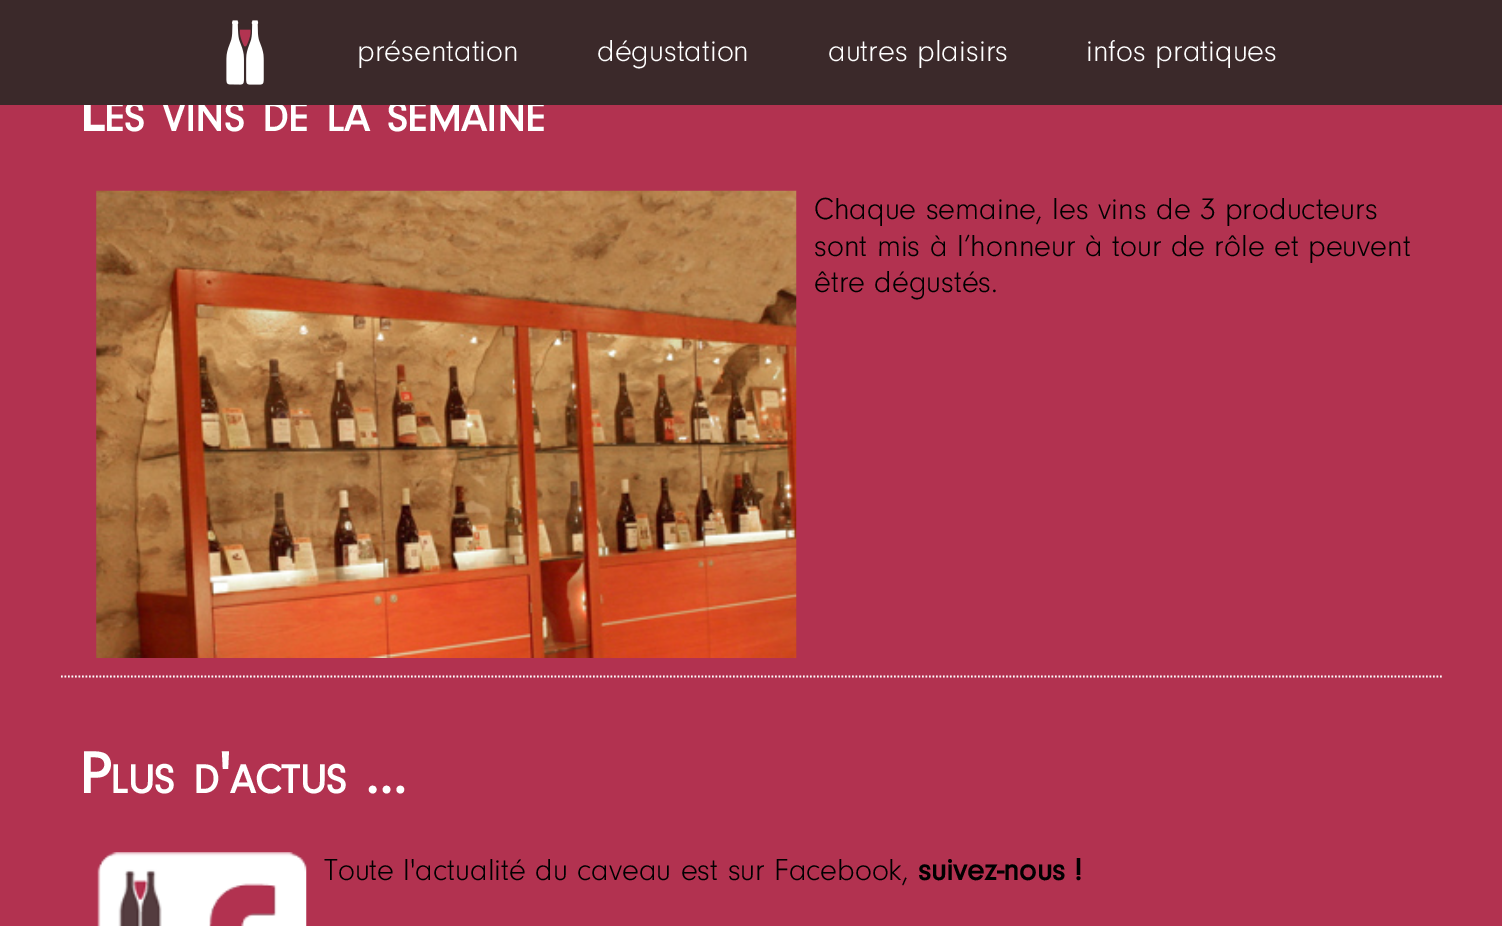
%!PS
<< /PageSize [1502 926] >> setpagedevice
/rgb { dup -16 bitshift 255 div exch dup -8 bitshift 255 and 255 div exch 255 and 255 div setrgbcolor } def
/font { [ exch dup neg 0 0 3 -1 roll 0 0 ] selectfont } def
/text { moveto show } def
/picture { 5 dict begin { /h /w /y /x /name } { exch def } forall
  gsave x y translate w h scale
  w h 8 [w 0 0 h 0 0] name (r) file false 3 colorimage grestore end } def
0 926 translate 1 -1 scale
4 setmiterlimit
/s1 { /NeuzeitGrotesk-Bold 60 font 16#FFFFFF rgb } def
/s2 { /NeuzeitGrotesk-Bold 41.5 font 16#FFFFFF rgb } def
/s3 { /NeuzeitGrotesk-Light 31.5 font 16#FFFFFF rgb } def
/s4 { /NeuzeitGrotesk-Light 31.5 font 16#000000 rgb } def
/s5 { /NeuzeitGrotesk-Bold 31.5 font 16#000000 rgb } def
16#B23250 rgb
0 0 1502 926 rectfill
s1
(L) 79 131 text
s2
(ES) 104 131 text
(VINS) 162 131 text
(DE) 262 131 text
(LA) 326 131 text
(SEMAINE) 387 131 text
16#3B292A rgb
0 0 1502 105 rectfill
(pic1.raw) 226 20 38 65 picture
s3
(présentation) 357 61 text
(dégustation) 597 61 text
(autres plaisirs) 828 61 text
(infos pratiques) 1086 61 text
(pic2.raw) 96 190 701 468 picture
s4
(Chaque semaine, les vins de 3 producteurs) 814 219 text
(sont mis à l’honneur à tour de rôle et peuvent) 814 256 text
(être dégustés.) 814 292 text
16#FFFFFF rgb
1.8 setlinewidth
[1.75 1.75] 0 setdash
61 676.5 moveto 1442 676.5 lineto stroke
s1
(P) 79 793 text
(') 219 793 text
s2
(LUS) 110 793 text
(D) 193 793 text
(ACTUS) 230 793 text
s1
(…) 365 793 text
(pic3.raw) 97 852 210 74 picture
s4
(Toute l'actualité du caveau est sur Facebook,) 324 880 text
s5
(suivez-nous !) 918 880 text
showpage
